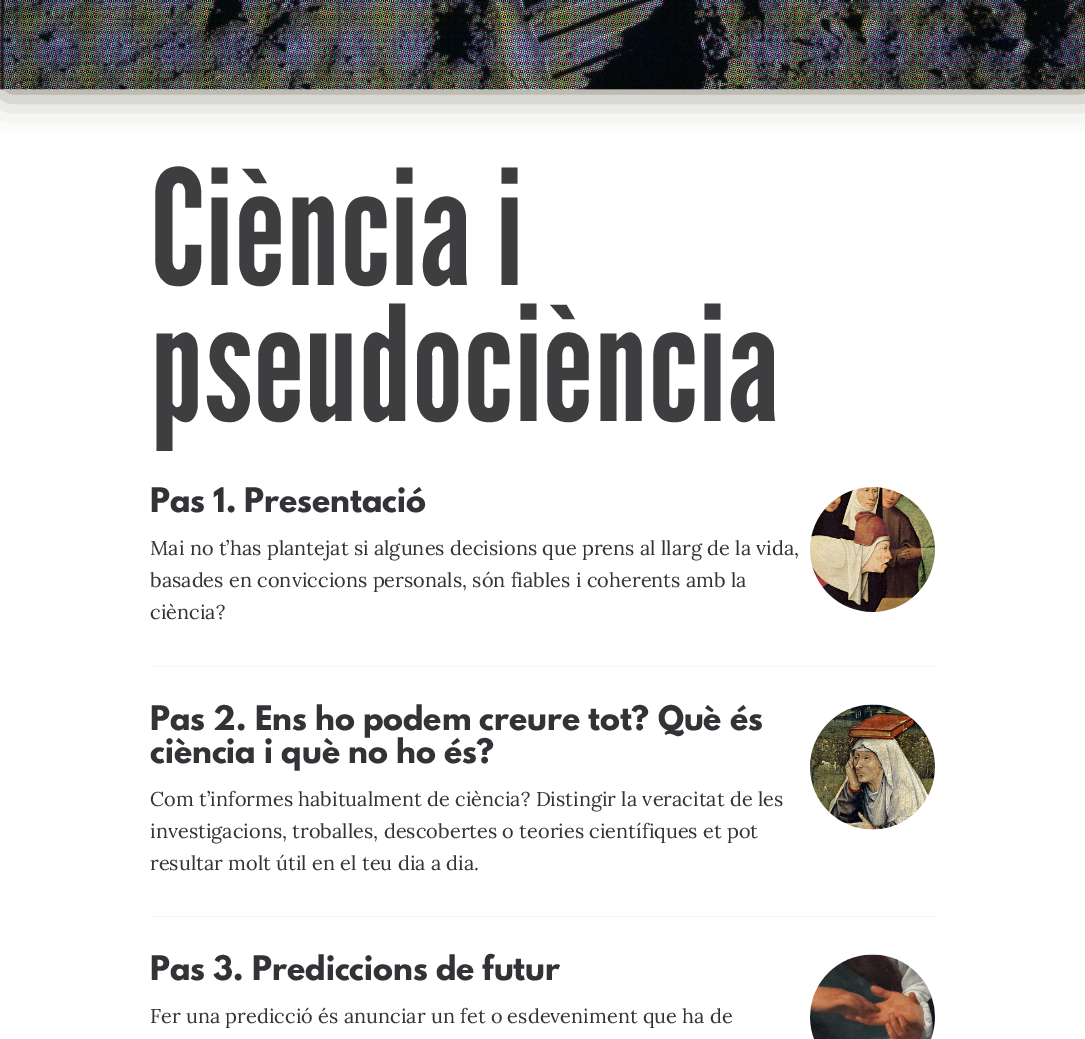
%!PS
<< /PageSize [1085 1039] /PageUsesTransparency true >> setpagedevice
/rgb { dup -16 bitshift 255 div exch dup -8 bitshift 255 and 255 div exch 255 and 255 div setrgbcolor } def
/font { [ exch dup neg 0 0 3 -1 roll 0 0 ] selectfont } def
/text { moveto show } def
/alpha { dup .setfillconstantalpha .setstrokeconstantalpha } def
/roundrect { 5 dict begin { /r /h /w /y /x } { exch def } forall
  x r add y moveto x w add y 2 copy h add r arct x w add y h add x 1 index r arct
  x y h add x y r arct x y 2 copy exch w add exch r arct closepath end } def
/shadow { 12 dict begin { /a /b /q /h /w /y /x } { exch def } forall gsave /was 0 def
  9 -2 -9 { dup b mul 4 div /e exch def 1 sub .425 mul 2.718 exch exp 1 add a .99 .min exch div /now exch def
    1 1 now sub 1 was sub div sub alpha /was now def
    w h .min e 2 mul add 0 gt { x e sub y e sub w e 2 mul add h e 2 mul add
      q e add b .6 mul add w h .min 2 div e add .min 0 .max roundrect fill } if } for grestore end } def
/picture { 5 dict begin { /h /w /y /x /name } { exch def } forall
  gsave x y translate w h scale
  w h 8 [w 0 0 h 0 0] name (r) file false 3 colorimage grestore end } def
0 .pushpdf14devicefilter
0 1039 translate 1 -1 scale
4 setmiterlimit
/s1 { /LeagueGothic-Regular 160 font 16#3E3E40 rgb } def
/s2 { /LeagueSpartan-Bold 30 font 16#333337 rgb } def
/s3 { /Lora-Regular 20 font 16#333337 rgb } def
16#FFFFFF rgb
0 0 1085 1039 rectfill
16#7A7363 rgb
4 -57 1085 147 0 19 1 shadow
(pic1.raw) 0 0 1085 90 picture
s1
(Ciència i) 150 285 text
(pseudociència) 150 421 text
16#F5F5F5 rgb
150 666 785 1 rectfill
s2
(Pas 1. Presentació) 150 512 text
s3
(Mai no t’has plantejat si algunes decisions que prens al llarg de la vida,) 150 555 text
(basades en conviccions personals, són fiables i coherents amb la) 150 587 text
(ciència?) 150 619 text
(pic2.raw) 810 487 125 125 picture
16#F5F5F5 rgb
150 916 785 1 rectfill
s2
(Pas 2. Ens ho podem creure tot? Què és) 150 730 text
(ciència i què no ho és?) 150 763 text
s3
(Com t’informes habitualment de ciència? Distingir la veracitat de les) 150 806 text
(investigacions, troballes, descobertes o teories científiques et pot) 150 838 text
(resultar molt útil en el teu dia a dia.) 150 870 text
(pic3.raw) 810 704 125 126 picture
s2
(Pas 3. Prediccions de futur) 150 980 text
s3
(Fer una predicció és anunciar un fet o esdeveniment que ha de) 150 1023 text
(pic4.raw) 810 954 125 85 picture
.poppdf14devicefilter showpage
